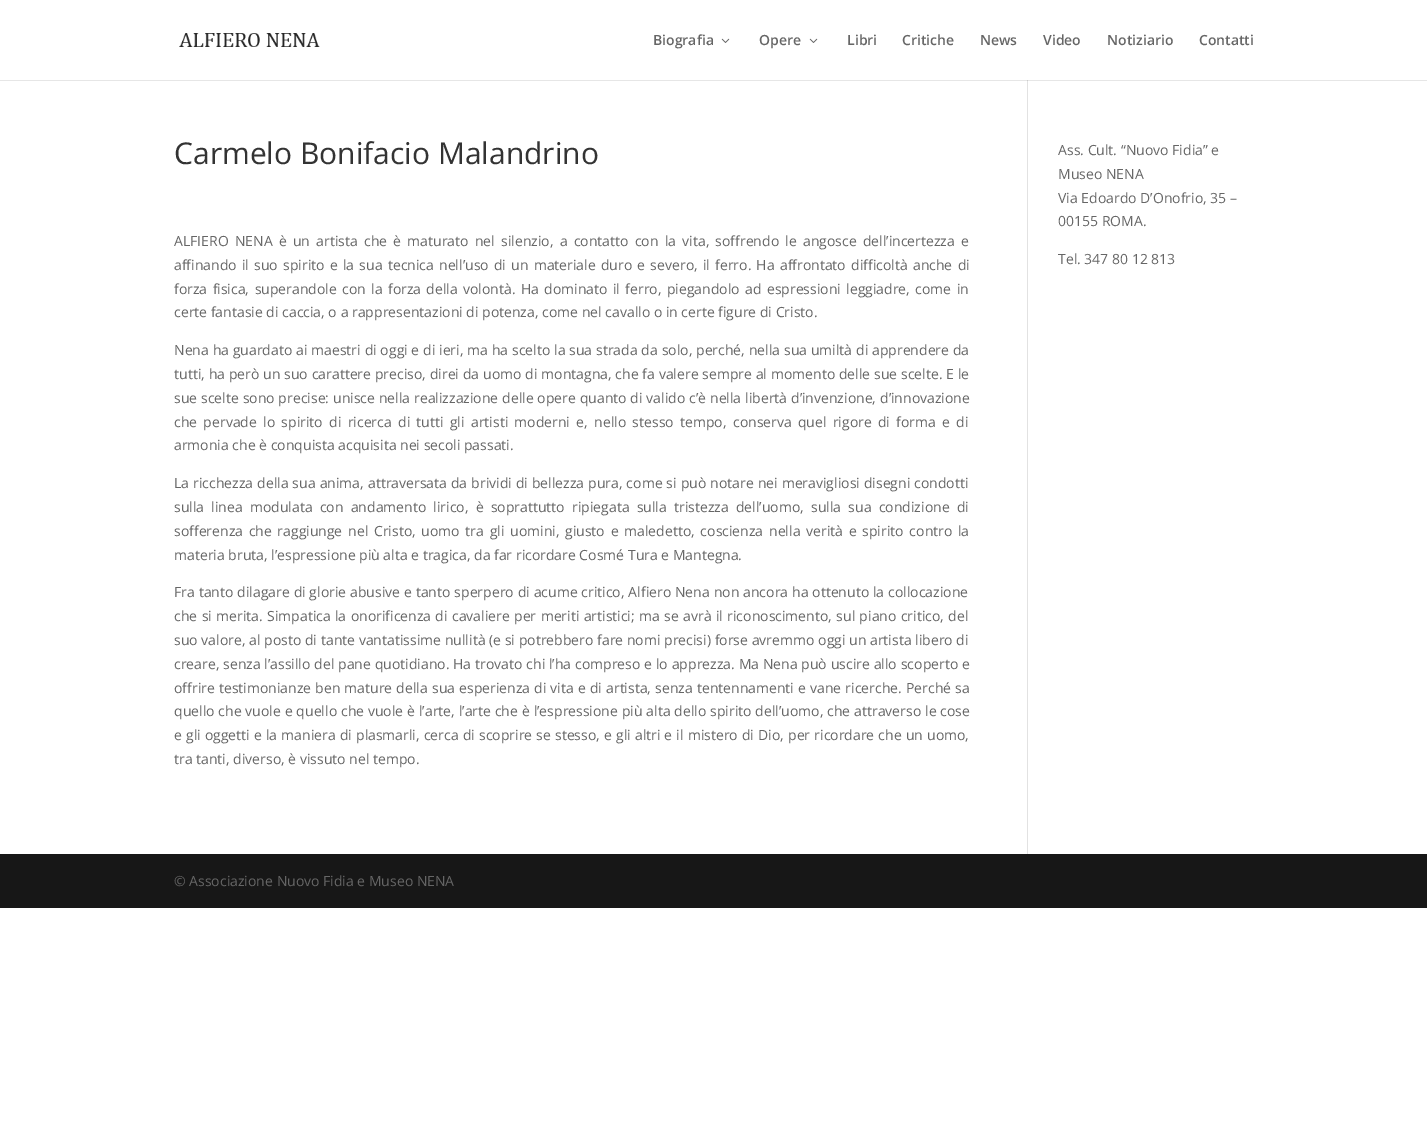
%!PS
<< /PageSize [1427 1143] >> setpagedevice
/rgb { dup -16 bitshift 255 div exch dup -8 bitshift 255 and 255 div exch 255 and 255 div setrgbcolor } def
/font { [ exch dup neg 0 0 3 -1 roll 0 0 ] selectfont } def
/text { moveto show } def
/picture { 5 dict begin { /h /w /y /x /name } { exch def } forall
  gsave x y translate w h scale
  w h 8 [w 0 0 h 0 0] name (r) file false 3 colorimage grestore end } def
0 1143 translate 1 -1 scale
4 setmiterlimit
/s1 { /OpenSans-SemiBold 14 font 16#666666 rgb } def
/s2 { /OpenSans-Regular 30 font 16#333333 rgb } def
/s3 { /OpenSans-Regular 14 font 16#666666 rgb } def
16#FFFFFF rgb
0 0 1427 1143 rectfill
16#E6E6E6 rgb
0 80 1427 1 rectfill
(pic1.raw) 179 33 141 14 picture
s1
(Biografia) 653 45 text
(pic2.raw) 721 38 9 5 picture
(Opere) 759 45 text
(pic2.raw) 809 38 9 5 picture
(Libri) 847 45 text
(Critiche) 902 45 text
(News) 980 45 text
(Video) 1043 45 text
(Notiziario) 1107 45 text
(Contatti) 1199 45 text
16#E2E2E2 rgb
1027 80 1 774 rectfill
16#CBCBCB rgb
1027 80 1 1 rectfill
s2
(Carmelo Bonifacio Malandrino) 174 164 text
/OpenSans-Regular 14 font
16#666666 rgb
174 246 moveto 2.6 0 32 (ALFIERO NENA è un artista che è maturato nel silenzio, a contatto con la vita, soffrendo le angosce dell’incertezza e) widthshow
174 270 moveto 1.6 0 32 (affinando il suo spirito e la sua tecnica nell’uso di un materiale duro e severo, il ferro. Ha affrontato difficoltà anche di) widthshow
174 294 moveto 1.75 0 32 (forza fisica, superandole con la forza della volontà. Ha dominato il ferro, piegandolo ad espressioni leggiadre, come in) widthshow
(certe fantasie di caccia, o a rappresentazioni di potenza, come nel cavallo o in certe figure di Cristo.) 174 317 text
174 355 moveto 0.2 0 32 (Nena ha guardato ai maestri di oggi e di ieri, ma ha scelto la sua strada da solo, perché, nella sua umiltà di apprendere da) widthshow
174 379 moveto 0.2 0 32 (tutti, ha però un suo carattere preciso, direi da uomo di montagna, che fa valere sempre al momento delle sue scelte. E le) widthshow
174 403 moveto 0.25 0 32 (sue scelte sono precise: unisce nella realizzazione delle opere quanto di valido c’è nella libertà d’invenzione, d’innovazione) widthshow
174 427 moveto 2.7 0 32 (che pervade lo spirito di ricerca di tutti gli artisti moderni e, nello stesso tempo, conserva quel rigore di forma e di) widthshow
(armonia che è conquista acquisita nei secoli passati.) 174 450 text
174 488 moveto 0.4 0 32 (La ricchezza della sua anima, attraversata da brividi di bellezza pura, come si può notare nei meravigliosi disegni condotti) widthshow
174 512 moveto 3.6 0 32 (sulla linea modulata con andamento lirico, è soprattutto ripiegata sulla tristezza dell’uomo, sulla sua condizione di) widthshow
174 536 moveto 2.1 0 32 (sofferenza che raggiunge nel Cristo, uomo tra gli uomini, giusto e maledetto, coscienza nella verità e spirito contro la) widthshow
(materia bruta, l’espressione più alta e tragica, da far ricordare Cosmé Tura e Mantegna.) 174 560 text
174 597 moveto 0.25 0 32 (Fra tanto dilagare di glorie abusive e tanto sperpero di acume critico, Alfiero Nena non ancora ha ottenuto la collocazione) widthshow
174 621 moveto 0.75 0 32 (che si merita. Simpatica la onorificenza di cavaliere per meriti artistici; ma se avrà il riconoscimento, sul piano critico, del) widthshow
174 645 moveto 0.1 0 32 (suo valore, al posto di tante vantatissime nullità \(e si potrebbero fare nomi precisi\) forse avremmo oggi un artista libero di) widthshow
174 669 moveto 0.2 0 32 (creare, senza l’assillo del pane quotidiano. Ha trovato chi l’ha compreso e lo apprezza. Ma Nena può uscire allo scoperto e) widthshow
174 693 moveto 0.5 0 32 (offrire testimonianze ben mature della sua esperienza di vita e di artista, senza tentennamenti e vane ricerche. Perché sa) widthshow
174 716 moveto 0.25 0 32 (quello che vuole e quello che vuole è l’arte, l’arte che è l’espressione più alta dello spirito dell’uomo, che attraverso le cose) widthshow
174 740 moveto 0.5 0 32 (e gli oggetti e la maniera di plasmarli, cerca di scoprire se stesso, e gli altri e il mistero di Dio, per ricordare che un uomo,) widthshow
(tra tanti, diverso, è vissuto nel tempo.) 174 764 text
(Ass. Cult. “Nuovo Fidia” e) 1058 155 text
(Museo NENA) 1058 179 text
(Via Edoardo D’Onofrio, 35 –) 1058 203 text
(00155 ROMA.) 1058 226 text
(Tel. 347 80 12 813) 1058 264 text
16#171717 rgb
0 854 1427 54 rectfill
s3
(© Associazione Nuovo Fidia e Museo NENA) 174 886 text
showpage
